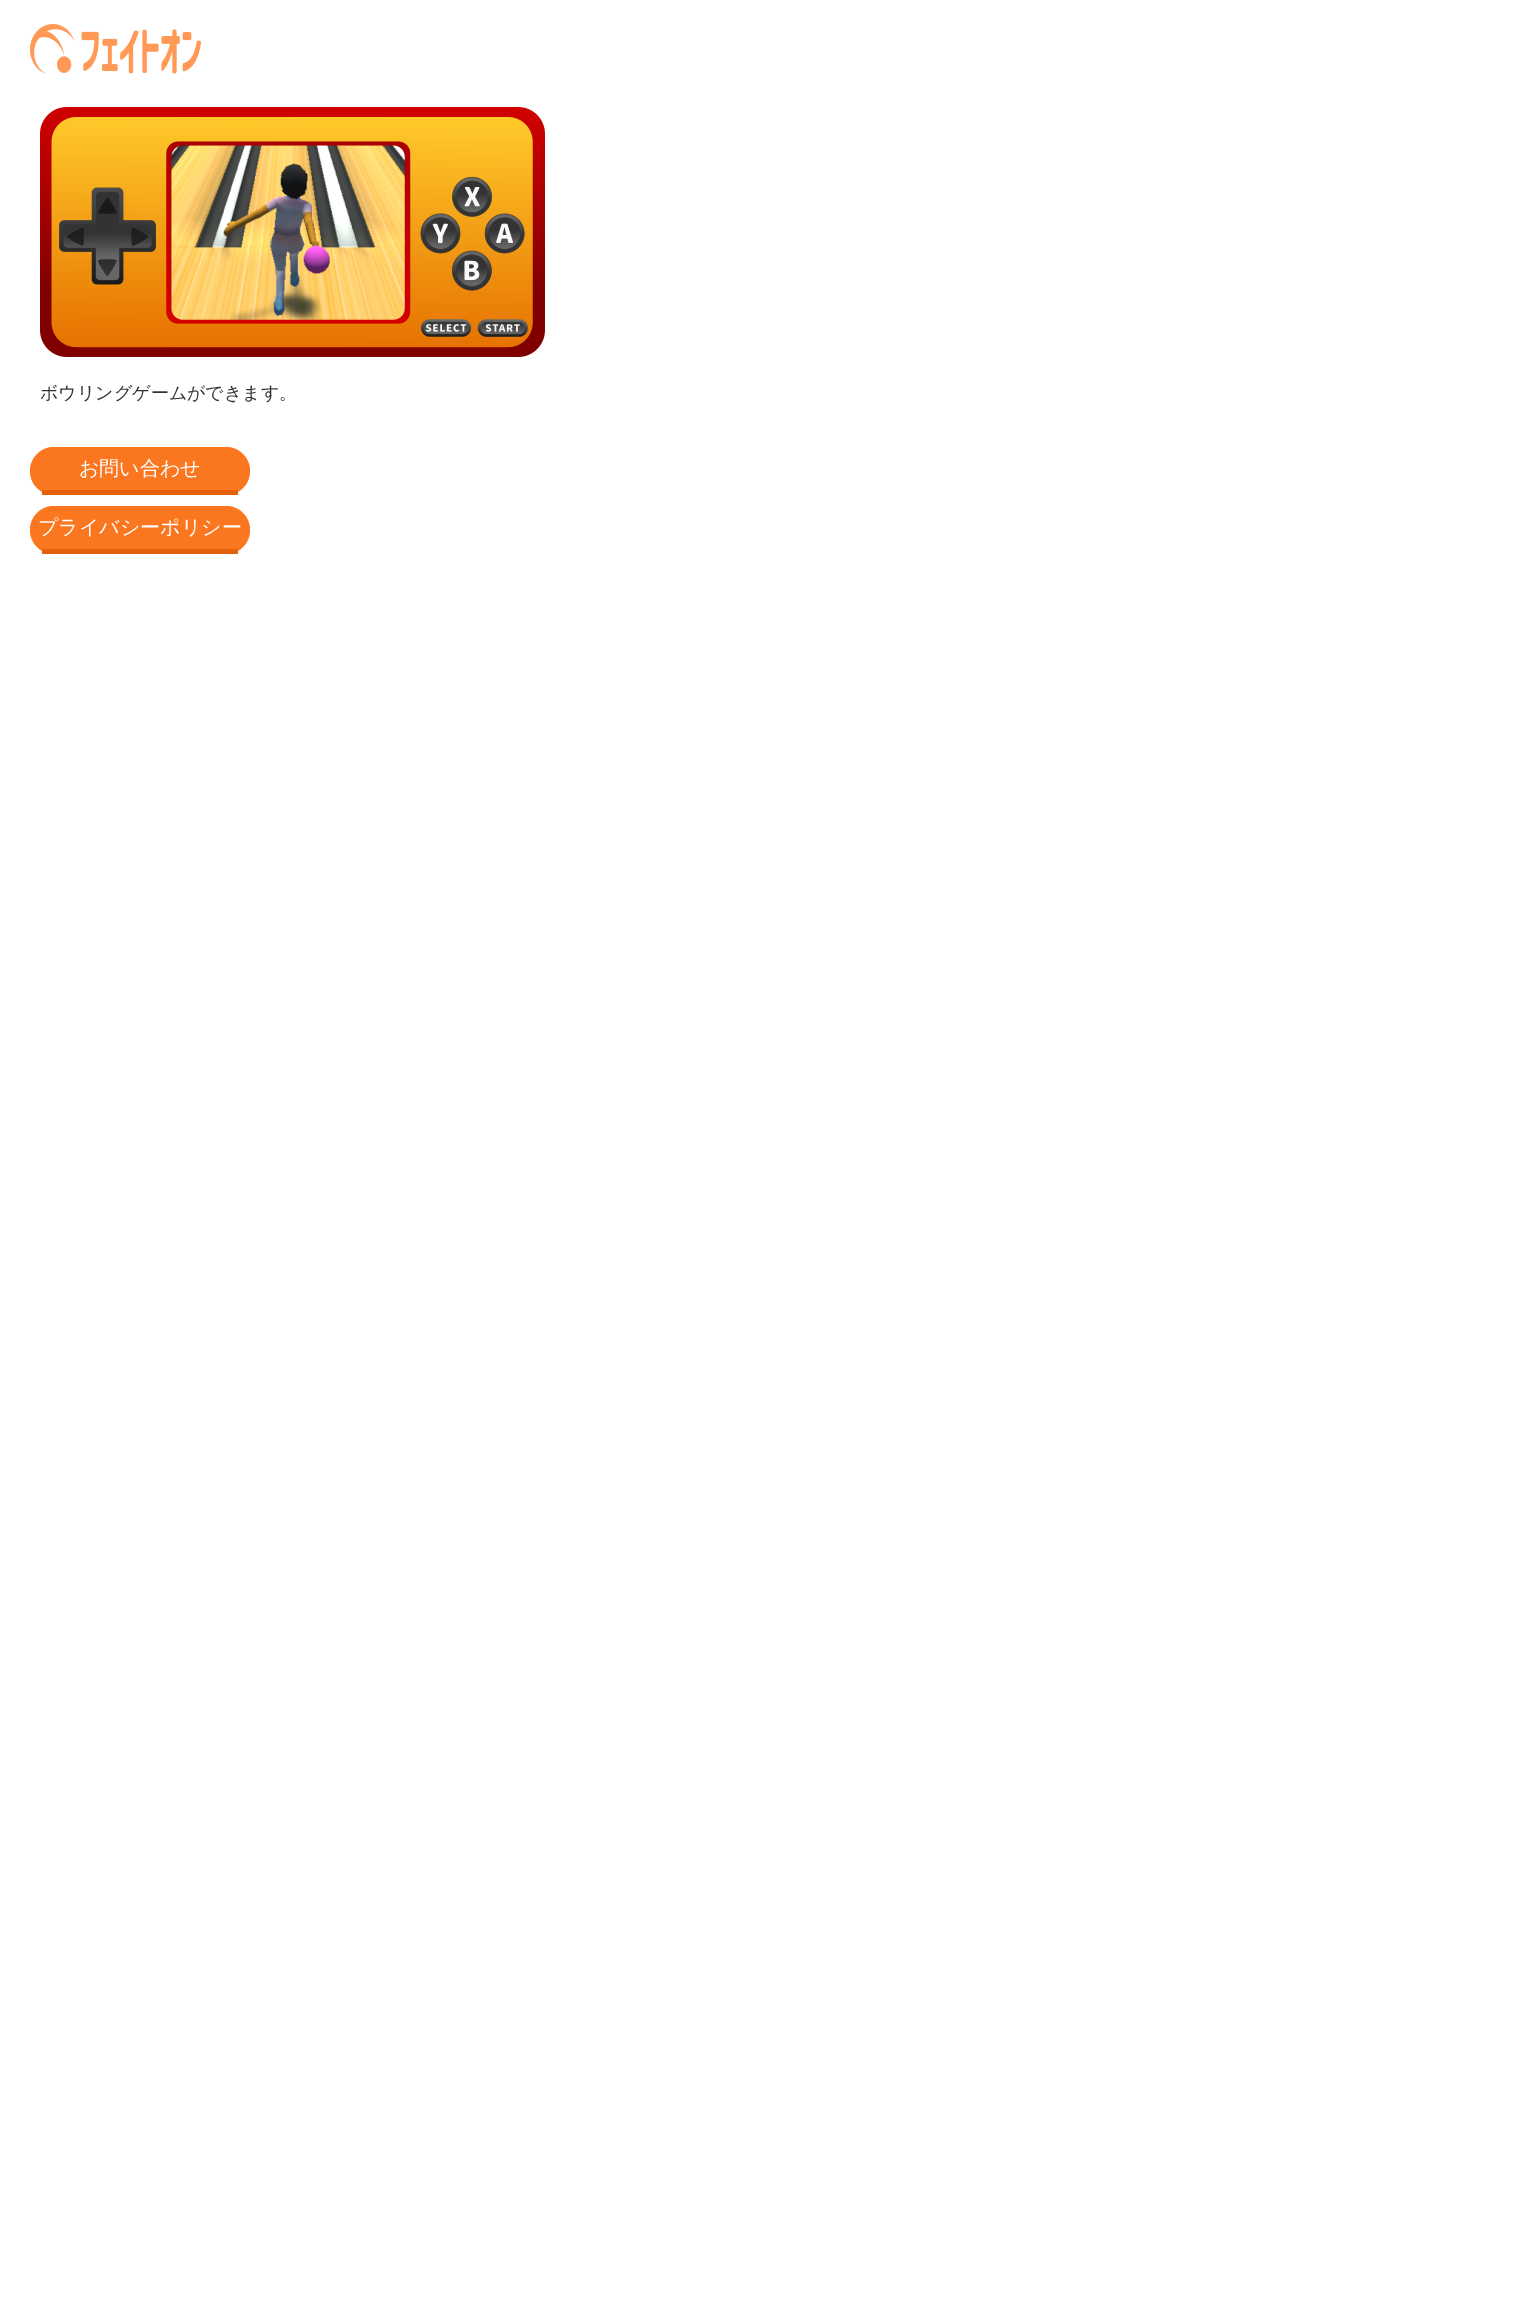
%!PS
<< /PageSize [1513 2321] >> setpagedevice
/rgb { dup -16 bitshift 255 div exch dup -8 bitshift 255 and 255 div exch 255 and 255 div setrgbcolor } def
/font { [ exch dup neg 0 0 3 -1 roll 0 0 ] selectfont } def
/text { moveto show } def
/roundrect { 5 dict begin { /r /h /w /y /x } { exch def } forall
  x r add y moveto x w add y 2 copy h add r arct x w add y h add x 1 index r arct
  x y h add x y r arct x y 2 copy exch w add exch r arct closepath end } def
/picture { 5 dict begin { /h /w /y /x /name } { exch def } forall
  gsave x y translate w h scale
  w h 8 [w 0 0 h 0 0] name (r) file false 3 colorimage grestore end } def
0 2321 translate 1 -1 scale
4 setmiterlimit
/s1 { /WenQuanYiZenHei-Medium 18 font 16#333333 rgb } def
/s2 { /WenQuanYiZenHei-Medium 20 font 16#FFFFFF rgb } def
16#FFFFFF rgb
0 0 1513 2321 rectfill
(pic1.raw) 30 24 171 50 picture
(pic2.raw) 40 107 505 250 picture
s1
(ボウリングゲームができます。) 40 399 text
16#FA7720 rgb
30 447 220 48 24 roundrect fill
16#E3610B rgb
42 490 196 5 rectfill
s2
(お問い合わせ) 79 475 text
16#FA7720 rgb
30 506 220 48 24 roundrect fill
16#E3610B rgb
42 549 196 5 rectfill
s2
(プライバシーポリシー) 38 534 text
showpage
